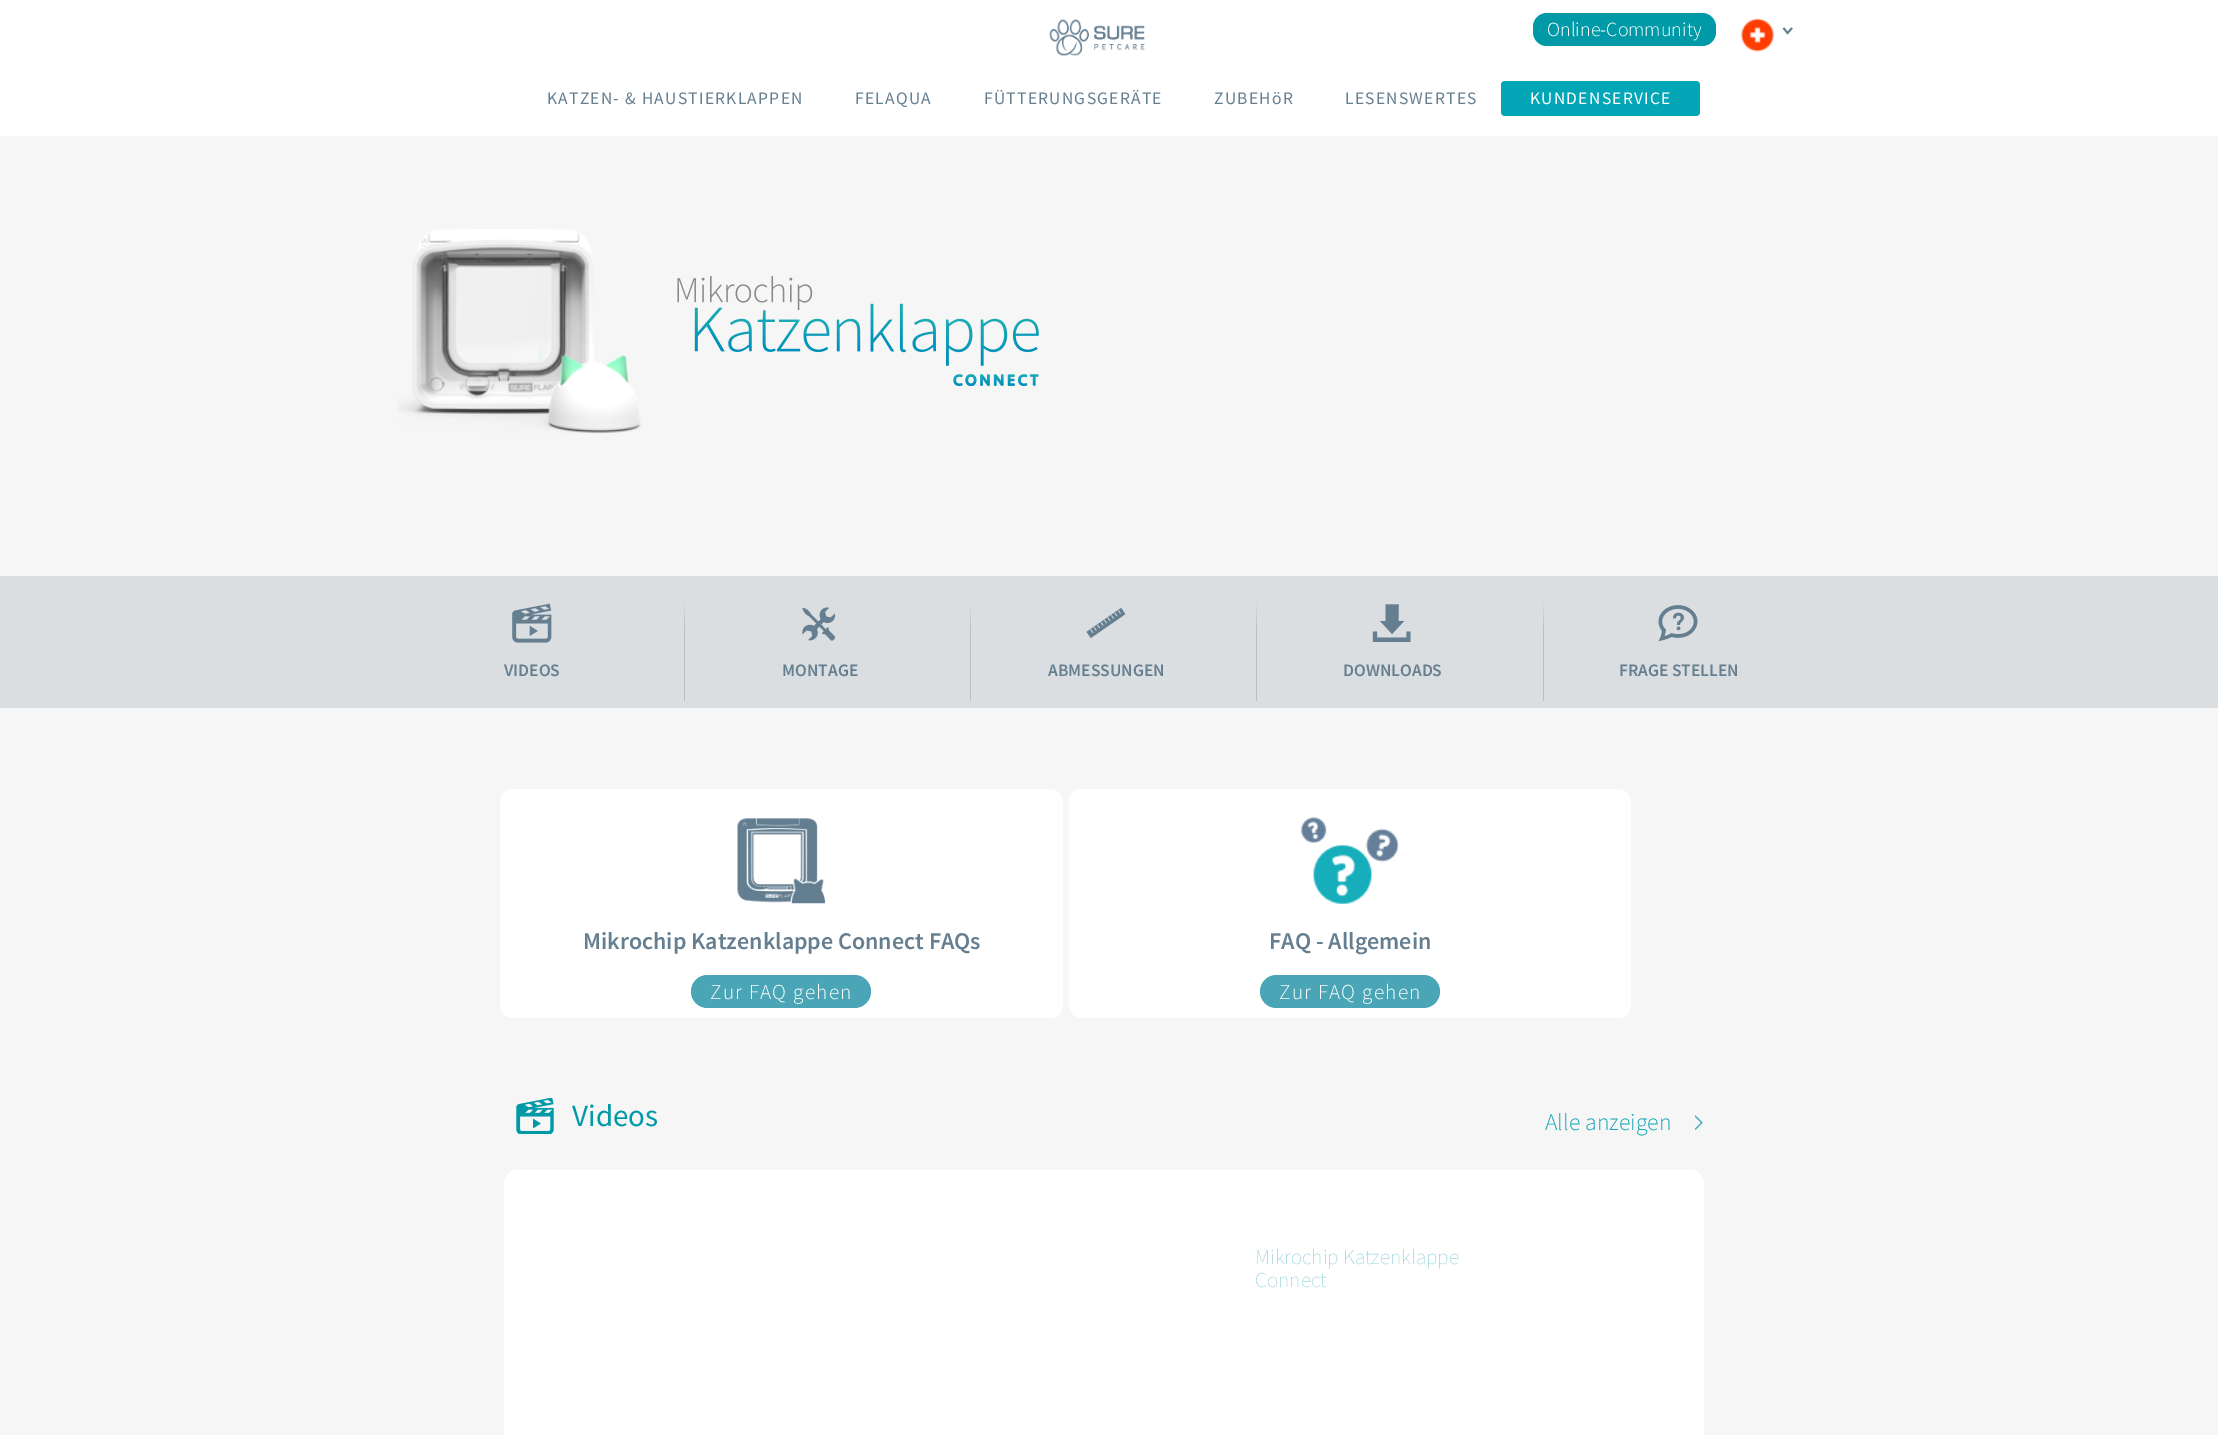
%!PS
<< /PageSize [2218 1435] >> setpagedevice
/rgb { dup -16 bitshift 255 div exch dup -8 bitshift 255 and 255 div exch 255 and 255 div setrgbcolor } def
/font { [ exch dup neg 0 0 3 -1 roll 0 0 ] selectfont } def
/text { moveto show } def
/roundrect { 5 dict begin { /r /h /w /y /x } { exch def } forall
  x r add y moveto x w add y 2 copy h add r arct x w add y h add x 1 index r arct
  x y h add x y r arct x y 2 copy exch w add exch r arct closepath end } def
/picture { 5 dict begin { /h /w /y /x /name } { exch def } forall
  gsave x y translate w h scale
  w h 8 [w 0 0 h 0 0] name (r) file false 3 colorimage grestore end } def
0 1435 translate 1 -1 scale
4 setmiterlimit
/s1 { /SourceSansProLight-Light 20 font 16#FFFFFF rgb } def
/s2 { /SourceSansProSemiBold-SemiBold 17.5 font 16#657F91 rgb } def
/s3 { /SourceSansProSemiBold-SemiBold 24 font 16#657F91 rgb } def
/s4 { /SourceSansPro-Regular 31 font 16#0099A8 rgb } def
/s5 { /SourceSansProLight-Light 23.75 font 16#16A6B6 rgb } def
/s6 { /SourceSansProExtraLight-ExtraLight 21.25 font 16#99D6DC rgb } def
16#F6F6F6 rgb
0 0 2218 1435 rectfill
16#FFFFFF rgb
0 0 2218 136 rectfill
(pic1.raw) 1049 19 96 37 picture
16#0099A8 rgb
1533 13 183 33 14 roundrect fill
s1
(Online-Community) 1547 36 text
(pic2.raw) 1741 18 33 34 picture
16#5D8090 rgb
1.8 setlinewidth
1792 28 moveto 1787.5 33 lineto 1783.5 28 lineto stroke
/SourceSansPro-Regular 17.5 font
16#657F91 rgb
547 104 moveto 1.25 0 (KATZEN- & HAUSTIERKLAPPEN) ashow
855 104 moveto 1.25 0 (FELAQUA) ashow
984 104 moveto 1.25 0 (FÜTTERUNGSGERÄTE) ashow
1214 104 moveto 1.25 0 (ZUBEHöR) ashow
1345 104 moveto 1.25 0 (LESENSWERTES) ashow
16#02A6B6 rgb
1501 81 199 35 4 roundrect fill
16#FFFFFF rgb
1530 104 moveto 1.25 0 (KUNDENSERVICE) ashow
(pic3.raw) 398 229 244 205 picture
(pic4.raw) 677 276 362 110 picture
16#DBDEE1 rgb
0 576 2218 132 rectfill
(pic5.raw) 512 603 40 40 picture
s2
(VIDEOS) 504 676 text
gsave 684 601 moveto 685 601 lineto 685 701 lineto 684 701 lineto closepath clip newpath
<< /ShadingType 2 /ColorSpace /DeviceRGB /Coords [684 601 684 701] /Extend [true true] /Function << /FunctionType 3 /Domain [0 1] /Functions [<< /FunctionType 2 /Domain [0 1] /C0 [0.859 0.871 0.882] /C1 [0.722 0.753 0.776] /N 1 >> << /FunctionType 2 /Domain [0 1] /C0 [0.722 0.753 0.776] /C1 [0.722 0.753 0.776] /N 1 >>] /Bounds [0.27] /Encode [0 1 0 1] >> >> shfill grestore
(pic6.raw) 802 607 34 34 picture
(MONTAGE) 782 676 text
gsave 970 601 moveto 971 601 lineto 971 701 lineto 970 701 lineto closepath clip newpath
<< /ShadingType 2 /ColorSpace /DeviceRGB /Coords [971 601 971 701] /Extend [true true] /Function << /FunctionType 3 /Domain [0 1] /Functions [<< /FunctionType 2 /Domain [0 1] /C0 [0.859 0.871 0.882] /C1 [0.722 0.753 0.776] /N 1 >> << /FunctionType 2 /Domain [0 1] /C0 [0.722 0.753 0.776] /C1 [0.722 0.753 0.776] /N 1 >>] /Bounds [0.27] /Encode [0 1 0 1] >> >> shfill grestore
(pic7.raw) 1086 608 40 31 picture
(ABMESSUNGEN) 1048 676 text
gsave 1256 601 moveto 1257 601 lineto 1257 701 lineto 1256 701 lineto closepath clip newpath
<< /ShadingType 2 /ColorSpace /DeviceRGB /Coords [1257 601 1257 701] /Extend [true true] /Function << /FunctionType 3 /Domain [0 1] /Functions [<< /FunctionType 2 /Domain [0 1] /C0 [0.859 0.871 0.882] /C1 [0.722 0.753 0.776] /N 1 >> << /FunctionType 2 /Domain [0 1] /C0 [0.722 0.753 0.776] /C1 [0.722 0.753 0.776] /N 1 >>] /Bounds [0.27] /Encode [0 1 0 1] >> >> shfill grestore
(pic8.raw) 1372 604 39 38 picture
(DOWNLOADS) 1343 676 text
gsave 1543 601 moveto 1544 601 lineto 1544 701 lineto 1543 701 lineto closepath clip newpath
<< /ShadingType 2 /ColorSpace /DeviceRGB /Coords [1543 601 1543 701] /Extend [true true] /Function << /FunctionType 3 /Domain [0 1] /Functions [<< /FunctionType 2 /Domain [0 1] /C0 [0.859 0.871 0.882] /C1 [0.722 0.753 0.776] /N 1 >> << /FunctionType 2 /Domain [0 1] /C0 [0.722 0.753 0.776] /C1 [0.722 0.753 0.776] /N 1 >>] /Bounds [0.27] /Encode [0 1 0 1] >> >> shfill grestore
(pic9.raw) 1658 605 40 37 picture
(FRAGE STELLEN) 1619 676 text
16#FFFFFF rgb
500 789 563 229 13 roundrect fill
(pic10.raw) 737 818 88 86 picture
s3
(Mikrochip Katzenklappe Connect FAQs) 583 949 text
16#4AA6B6 rgb
691 975 180 33 16.5 roundrect fill
/SourceSansProLight-Light 21.25 font
16#FFFFFF rgb
710 999 moveto 1.25 0 (Zur FAQ gehen) ashow
1069 789 562 229 13 roundrect fill
(pic11.raw) 1301 817 98 88 picture
s3
(FAQ - Allgemein) 1269 949 text
16#4AA6B6 rgb
1260 975 180 33 16.5 roundrect fill
/SourceSansProLight-Light 21.25 font
16#FFFFFF rgb
1279 999 moveto 1.25 0 (Zur FAQ gehen) ashow
(pic12.raw) 516 1098 38 36 picture
s4
(Videos) 572 1126 text
(pic13.raw) 1695 1115 8 15 picture
s5
(Alle anzeigen) 1545 1130 text
16#FFFFFF rgb
517 1170 moveto 1691 1170 lineto 1698 1170 1704 1176 1704 1183 curveto 1704 1435 lineto 504 1435 lineto 504 1183 lineto 504 1176 510 1170 517 1170 curveto closepath fill
s6
(Mikrochip Katzenklappe) 1255 1264 text
(Connect) 1255 1287 text
showpage
